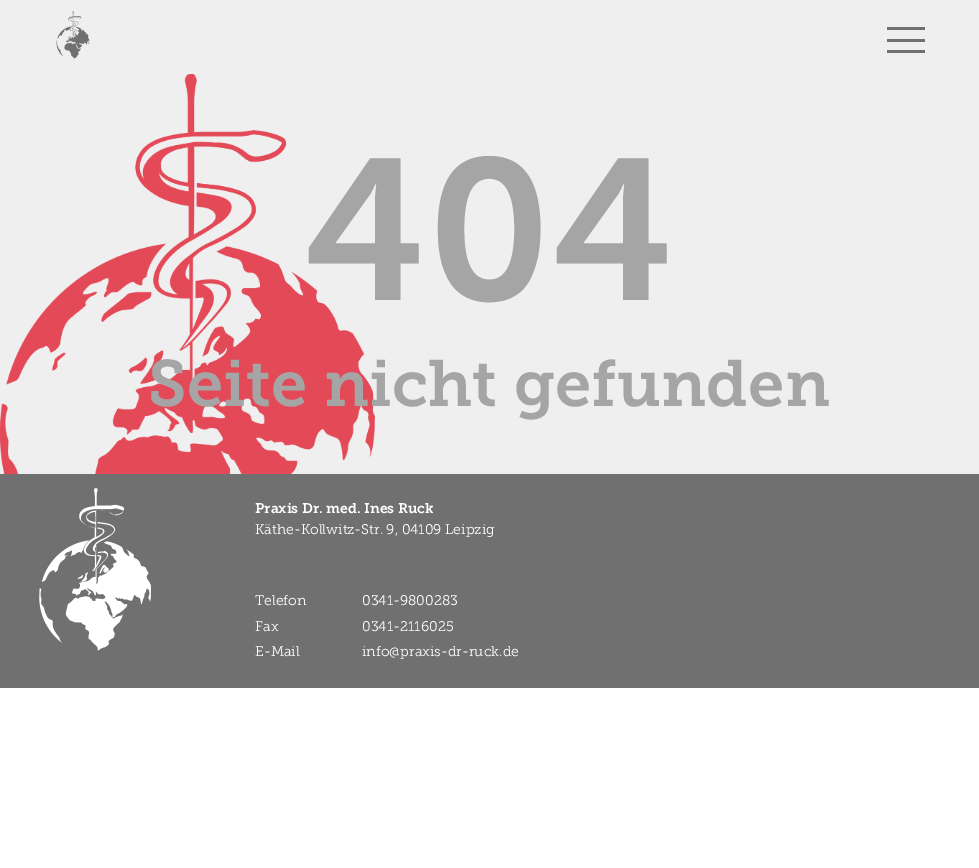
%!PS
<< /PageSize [979 868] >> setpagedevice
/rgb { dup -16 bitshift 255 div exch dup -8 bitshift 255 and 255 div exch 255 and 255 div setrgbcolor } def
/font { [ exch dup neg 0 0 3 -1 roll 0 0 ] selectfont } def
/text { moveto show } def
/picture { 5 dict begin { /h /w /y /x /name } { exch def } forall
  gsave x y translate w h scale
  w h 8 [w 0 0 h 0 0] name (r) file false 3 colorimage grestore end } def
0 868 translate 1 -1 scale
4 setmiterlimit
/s1 { /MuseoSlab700-SemiBold 14 font 16#FFFFFF rgb } def
/s2 { /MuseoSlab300-Light 14 font 16#FFFFFF rgb } def
16#FFFFFF rgb
0 0 979 868 rectfill
16#EFEFEF rgb
0 0 979 474 rectfill
(pic1.raw) 56 11 34 48 picture
16#707070 rgb
887 27 38 3 rectfill
887 39 38 3 rectfill
887 50 38 3 rectfill
(pic2.raw) 0 74 375 400 picture
/MuseoSlab700-SemiBold 200 font
16#A5A5A5 rgb
304 300 moveto 0.1 0 (404) ashow
/MuseoSlab700-SemiBold 65 font
148 406 moveto 0.1 0 (Seite nicht gefunden) ashow
16#707070 rgb
0 474 979 214 rectfill
(pic3.raw) 39 488 112 163 picture
s1
(Praxis Dr. med. Ines Ruck) 255 513 text
s2
(Käthe-Kollwitz-Str. 9, 04109 Leipzig) 255 534 text
(Telefon) 255 605 text
(Fax) 255 631 text
(E-Mail) 255 656 text
(0341-9800283) 362 605 text
(0341-2116025) 362 631 text
(info@praxis-dr-ruck.de) 362 656 text
showpage
